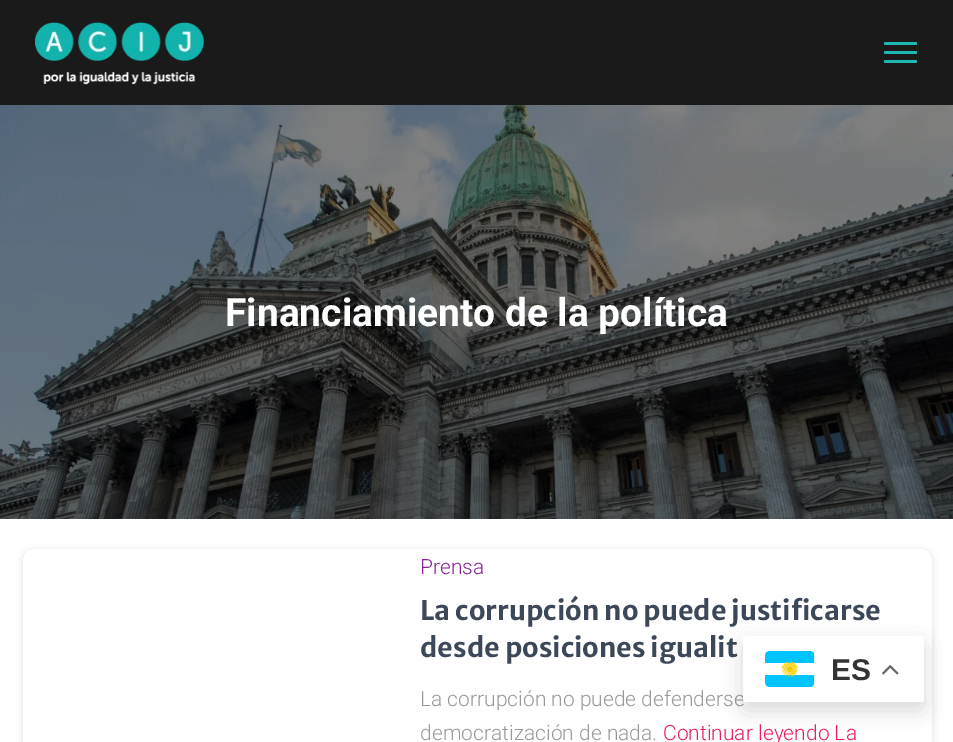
%!PS
<< /PageSize [953 742] /PageUsesTransparency true >> setpagedevice
/rgb { dup -16 bitshift 255 div exch dup -8 bitshift 255 and 255 div exch 255 and 255 div setrgbcolor } def
/font { [ exch dup neg 0 0 3 -1 roll 0 0 ] selectfont } def
/text { moveto show } def
/alpha { dup .setfillconstantalpha .setstrokeconstantalpha } def
/roundrect { 5 dict begin { /r /h /w /y /x } { exch def } forall
  x r add y moveto x w add y 2 copy h add r arct x w add y h add x 1 index r arct
  x y h add x y r arct x y 2 copy exch w add exch r arct closepath end } def
/shadow { 12 dict begin { /a /b /q /h /w /y /x } { exch def } forall gsave /was 0 def
  9 -2 -9 { dup b mul 4 div /e exch def 1 sub .425 mul 2.718 exch exp 1 add a .99 .min exch div /now exch def
    1 1 now sub 1 was sub div sub alpha /was now def
    w h .min e 2 mul add 0 gt { x e sub y e sub w e 2 mul add h e 2 mul add
      q e add b .6 mul add w h .min 2 div e add .min 0 .max roundrect fill } if } for grestore end } def
/picture { 5 dict begin { /h /w /y /x /name } { exch def } forall
  gsave x y translate w h scale
  w h 8 [w 0 0 h 0 0] name (r) file false 3 colorimage grestore end } def
0 .pushpdf14devicefilter
0 742 translate 1 -1 scale
4 setmiterlimit
/s1 { /Roboto-Bold 39 font 16#FFFFFF rgb } def
/s2 { /Roboto-Light 21 font 16#89229B rgb } def
/s3 { /MerriweatherSans-Bold 27 font 16#3C4858 rgb } def
/s4 { /Roboto-Light 21 font 16#999999 rgb } def
/s5 { /Roboto-Light 21 font 16#E91E63 rgb } def
/s6 { /LiberationSans-Bold 30 font 16#333333 rgb } def
16#FFFFFF rgb
0 0 953 742 rectfill
16#1A1A1A rgb
0 0 953 105 rectfill
(pic1.raw) 35 22 170 63 picture
16#1DB8B1 rgb
884 42 33 3 1.5 roundrect fill
884 51 33 3 1.5 roundrect fill
884 60 33 3 1.5 roundrect fill
(pic2.raw) 0 105 953 414 picture
s1
(Financiamiento de la política) 225 326 text
gsave
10 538 moveto 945 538 lineto 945 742 lineto 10 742 lineto closepath 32 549 moveto 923 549 lineto 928 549 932 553 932 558 curveto 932 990 lineto 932 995 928 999 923 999 curveto 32 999 lineto 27 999 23 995 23 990 curveto 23 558 lineto 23 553 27 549 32 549 curveto closepath eoclip newpath
16#000000 rgb
23 551 909 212 9 4 0.12 shadow
grestore
s2
(Prensa) 420 574 text
s3
(La corrupción no puede justificarse) 420 620 text
(desde posiciones igualit) 420 657 text
s4
(La corrupción no puede defenderse) 420 706 text
(democratización de nada.) 420 740 text
s5
(Continuar leyendo La) 663 740 text
16#000000 rgb
743 644 181 66 3 11 0.15 shadow
16#FFFFFF rgb
743 636 181 66 3 roundrect fill
(pic3.raw) 765 651 50 36 picture
s6
(ES) 831 680 text
(pic4.raw) 882 665 17 10 picture
.poppdf14devicefilter showpage
